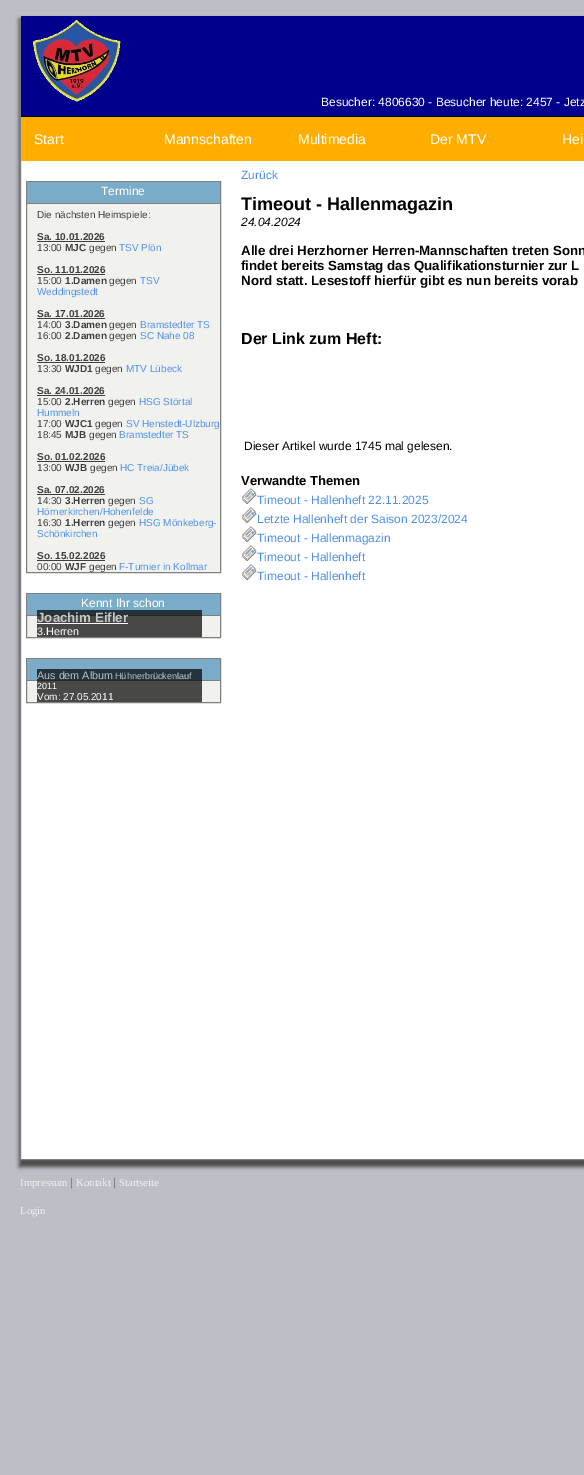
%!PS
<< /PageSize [584 1475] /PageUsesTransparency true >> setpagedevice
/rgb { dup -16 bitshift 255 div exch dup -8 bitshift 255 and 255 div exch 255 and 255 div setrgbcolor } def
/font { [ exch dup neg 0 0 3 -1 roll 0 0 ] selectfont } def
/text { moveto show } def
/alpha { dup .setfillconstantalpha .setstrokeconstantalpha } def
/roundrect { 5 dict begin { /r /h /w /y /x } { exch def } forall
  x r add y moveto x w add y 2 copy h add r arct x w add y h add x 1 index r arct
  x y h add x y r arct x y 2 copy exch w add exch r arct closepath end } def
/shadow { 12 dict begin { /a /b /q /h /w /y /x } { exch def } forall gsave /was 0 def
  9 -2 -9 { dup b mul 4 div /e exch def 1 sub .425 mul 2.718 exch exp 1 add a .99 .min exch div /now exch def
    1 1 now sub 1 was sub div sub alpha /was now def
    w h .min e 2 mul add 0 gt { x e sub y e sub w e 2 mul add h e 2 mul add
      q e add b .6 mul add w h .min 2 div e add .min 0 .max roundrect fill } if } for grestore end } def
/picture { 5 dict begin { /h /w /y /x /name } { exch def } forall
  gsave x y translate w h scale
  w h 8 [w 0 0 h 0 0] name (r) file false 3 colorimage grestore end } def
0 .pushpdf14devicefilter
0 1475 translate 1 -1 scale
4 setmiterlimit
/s1 { /LiberationSans-Regular 12 font 16#FFFFFF rgb } def
/s2 { /LiberationSans-Regular 14 font 16#FFFFFF rgb } def
/s3 { /LiberationSans-Regular 10 font 16#3F3F3F rgb } def
/s4 { /LiberationSans-Bold 10 font 16#3F3F3F rgb } def
/s5 { /LiberationSans-Regular 10 font 16#5090EA rgb } def
/s6 { /LiberationSans-Bold 13.3 font 16#C5C6C6 rgb } def
/s7 { /LiberationSans-Regular 10.75 font 16#FFFFFF rgb } def
/s8 { /LiberationSans-Regular 10.75 font 16#BEC2C5 rgb } def
/s9 { /LiberationSans-Regular 9 font 16#BEC2C5 rgb } def
/s10 { /LiberationSans-Regular 9 font 16#FFFFFF rgb } def
/s11 { /LiberationSans-Regular 10 font 16#FFFFFF rgb } def
/s12 { /LiberationSans-Regular 12 font 16#5090EA rgb } def
/s13 { /LiberationSans-Bold 18 font 16#000000 rgb } def
/s14 { /LiberationSans-Italic 12 font 16#000000 rgb } def
/s15 { /LiberationSans-Bold 13.3 font 16#000000 rgb } def
/s16 { /LiberationSans-Bold 16 font 16#000000 rgb } def
/s17 { /LiberationSans-Regular 12 font 16#000000 rgb } def
/s18 { /LiberationSans-Bold 13 font 16#000000 rgb } def
/s19 { /LiberationSerif-Regular 10.75 font 16#F0F0F0 rgb } def
/s20 { /LiberationSerif-Regular 12 font 16#535353 rgb } def
16#BDBEC6 rgb
0 0 584 1475 rectfill
16#494949 rgb
19 19 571 1148 0 2 1 shadow
16#FFFFFF rgb
21 161 563 998 rectfill
16#808080 rgb
20.5 20.5 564 1139 rectstroke
16#01008C rgb
21 16 563 100 rectfill
16#000000 rgb
21 116 563 1 rectfill
(pic1.raw) 33 20 88 82 picture
s1
(Besucher: 4806630 - Besucher heute: 2457 - Jetz) 321 106 text
16#FFAE00 rgb
21 117 563 44 rectfill
s2
(Start) 34 144 text
(Mannschaften) 164 144 text
(Multimedia) 298 144 text
(Der MTV) 430 144 text
(Hei) 562 144 text
16#F1F2ED rgb
27 204 193 368 rectfill
16#808080 rgb
26.5 181.5 194 391 rectstroke
16#7AACC9 rgb
27 182 193 21 rectfill
16#808080 rgb
27 203 193 1 rectfill
s1
(Termine) 101 195 text
s3
(Die nächsten Heimspiele:) 37 218 text
s4
(Sa. 10.01.2026) 37 240 text
37 241 68 1 rectfill
s3
(13:00) 37 251 text
s4
(MJC) 65 251 text
s3
(gegen) 89 251 text
s5
(TSV Plön) 119 251 text
s4
(So. 11.01.2026) 37 273 text
37 274 68 1 rectfill
s3
(15:00) 37 284 text
s4
(1.Damen) 65 284 text
s3
(gegen) 109 284 text
s5
(TSV) 140 284 text
(Weddingstedt) 37 295 text
s4
(Sa. 17.01.2026) 37 317 text
37 318 68 1 rectfill
s3
(14:00) 37 328 text
s4
(3.Damen) 65 328 text
s3
(gegen) 109 328 text
s5
(Bramstedter TS) 140 328 text
s3
(16:00) 37 339 text
s4
(2.Damen) 65 339 text
s3
(gegen) 109 339 text
s5
(SC Nahe 08) 140 339 text
s4
(So. 18.01.2026) 37 361 text
37 362 68 1 rectfill
s3
(13:30) 37 372 text
s4
(WJD1) 65 372 text
s3
(gegen) 95 372 text
s5
(MTV Lübeck) 126 372 text
s4
(Sa. 24.01.2026) 37 394 text
37 395 68 1 rectfill
s3
(15:00) 37 405 text
s4
(2.Herren) 65 405 text
s3
(gegen) 108 405 text
s5
(HSG Störtal) 139 405 text
(Hummeln) 37 416 text
s3
(17:00) 37 427 text
s4
(WJC1) 65 427 text
s3
(gegen) 95 427 text
s5
(SV Henstedt-Ulzburg) 126 427 text
s3
(18:45) 37 438 text
s4
(MJB) 65 438 text
s3
(gegen) 89 438 text
s5
(Bramstedter TS) 119 438 text
s4
(So. 01.02.2026) 37 460 text
37 461 68 1 rectfill
s3
(13:00) 37 471 text
s4
(WJB) 65 471 text
s3
(gegen) 90 471 text
s5
(HC Treia/Jübek) 120 471 text
s4
(Sa. 07.02.2026) 37 493 text
37 494 68 1 rectfill
s3
(14:30) 37 504 text
s4
(3.Herren) 65 504 text
s3
(gegen) 108 504 text
s5
(SG) 139 504 text
(Hörnerkirchen/Hohenfelde) 37 515 text
s3
(16:30) 37 526 text
s4
(1.Herren) 65 526 text
s3
(gegen) 108 526 text
s5
(HSG Mönkeberg-) 139 526 text
(Schönkirchen) 37 537 text
s4
(So. 15.02.2026) 37 559 text
37 560 68 1 rectfill
s3
(00:00) 37 570 text
s4
(WJF) 65 570 text
s3
(gegen) 89 570 text
s5
(F-Turnier in Kollmar) 119 570 text
16#F1F2ED rgb
27 616 193 21 rectfill
16#484947 rgb
37 616 165 21 rectfill
16#808080 rgb
26.5 593.5 194 44 rectstroke
16#7AACC9 rgb
27 594 193 21 rectfill
16#25343C rgb
37 610 165 5 rectfill
16#808080 rgb
27 615 193 1 rectfill
16#262626 rgb
37 615 165 1 rectfill
s1
(Kennt Ihr schon) 81 607 text
s6
(Joachim Eifler) 37 622 text
16#FBFBFA rgb
37 623 91 1 rectfill
s7
(3.Herren) 37 635 text
16#F1F2ED rgb
27 681 193 21 rectfill
16#808080 rgb
26.5 658.5 194 44 rectstroke
16#7AACC9 rgb
27 659 193 21 rectfill
16#808080 rgb
27 680 193 1 rectfill
0.7 alpha
16#000000 rgb
37 669 165 33 rectfill
1 alpha
s8
(Aus dem Album) 37 679 text
s9
(Hühnerbrückenlauf) 115 679 text
s10
(2011) 37 689 text
s11
(Vom: 27.05.2011) 37 700 text
s12
(Zurück) 241 179 text
s13
(Timeout - Hallenmagazin) 241 210 text
s14
(24.04.2024) 241 226 text
s15
(Alle drei Herzhorner Herren-Mannschaften treten Sonn) 241 255 text
(findet bereits Samstag das Qualifikationsturnier zur L) 241 270 text
(Nord statt. Lesestoff hierfür gibt es nun bereits vorab) 241 285 text
s16
(Der Link zum Heft:) 241 344 text
s17
(Dieser Artikel wurde 1745 mal gelesen.) 244 450 text
s18
(Verwandte Themen) 241 485 text
(pic2.raw) 242 488 15 16 picture
s12
(Timeout - Hallenheft 22.11.2025) 257 504 text
(pic2.raw) 242 507 15 16 picture
(Letzte Hallenheft der Saison 2023/2024) 257 523 text
(pic2.raw) 242 526 15 16 picture
(Timeout - Hallenmagazin) 257 542 text
(pic2.raw) 242 545 15 16 picture
(Timeout - Hallenheft) 257 561 text
(pic2.raw) 242 564 15 16 picture
(Timeout - Hallenheft) 257 580 text
s19
(Impressum) 20 1186 text
s20
(|) 70 1186 text
s19
(Kontakt) 76 1186 text
s20
(|) 113 1186 text
s19
(Startseite) 119 1186 text
(Login) 20 1214 text
.poppdf14devicefilter showpage
